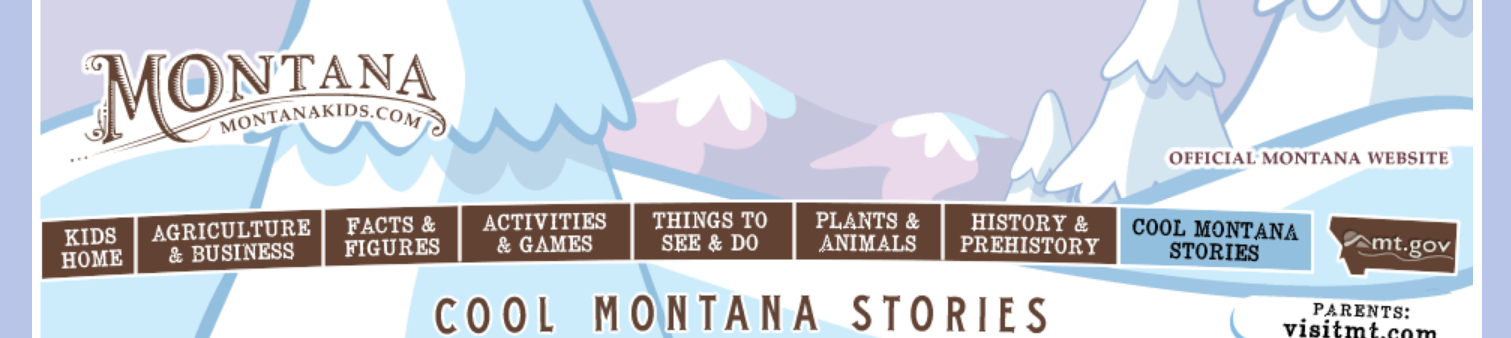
%!PS
<< /PageSize [1511 338] >> setpagedevice
/rgb { dup -16 bitshift 255 div exch dup -8 bitshift 255 and 255 div exch 255 and 255 div setrgbcolor } def
/picture { 5 dict begin { /h /w /y /x /name } { exch def } forall
  gsave x y translate w h scale
  w h 8 [w 0 0 h 0 0] name (r) file false 3 colorimage grestore end } def
0 338 translate 1 -1 scale
4 setmiterlimit
16#B8C4E8 rgb
0 0 1511 338 rectfill
16#FFFFFF rgb
1473 0 9 338 rectfill
32 0 9 338 rectfill
(pic1.raw) 40 0 1433 198 picture
(pic2.raw) 40 198 1433 140 picture
showpage
